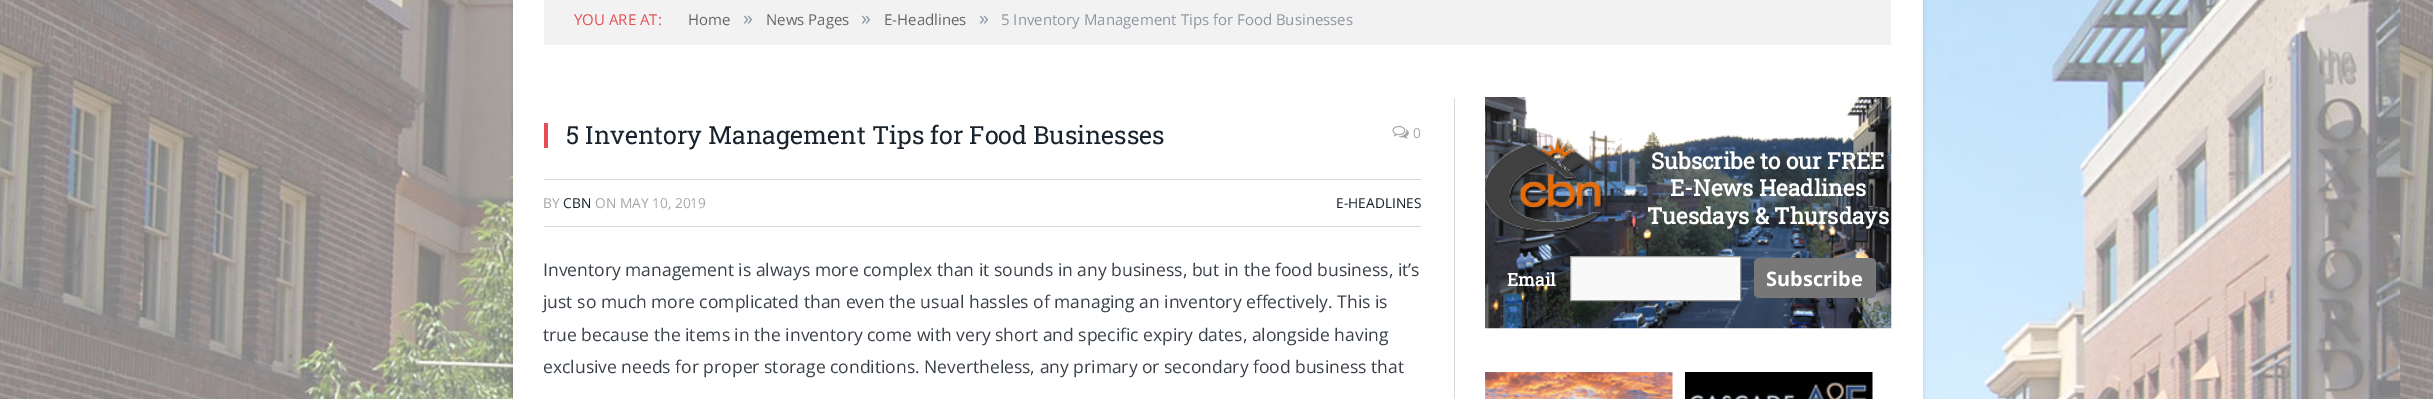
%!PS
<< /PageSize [2433 399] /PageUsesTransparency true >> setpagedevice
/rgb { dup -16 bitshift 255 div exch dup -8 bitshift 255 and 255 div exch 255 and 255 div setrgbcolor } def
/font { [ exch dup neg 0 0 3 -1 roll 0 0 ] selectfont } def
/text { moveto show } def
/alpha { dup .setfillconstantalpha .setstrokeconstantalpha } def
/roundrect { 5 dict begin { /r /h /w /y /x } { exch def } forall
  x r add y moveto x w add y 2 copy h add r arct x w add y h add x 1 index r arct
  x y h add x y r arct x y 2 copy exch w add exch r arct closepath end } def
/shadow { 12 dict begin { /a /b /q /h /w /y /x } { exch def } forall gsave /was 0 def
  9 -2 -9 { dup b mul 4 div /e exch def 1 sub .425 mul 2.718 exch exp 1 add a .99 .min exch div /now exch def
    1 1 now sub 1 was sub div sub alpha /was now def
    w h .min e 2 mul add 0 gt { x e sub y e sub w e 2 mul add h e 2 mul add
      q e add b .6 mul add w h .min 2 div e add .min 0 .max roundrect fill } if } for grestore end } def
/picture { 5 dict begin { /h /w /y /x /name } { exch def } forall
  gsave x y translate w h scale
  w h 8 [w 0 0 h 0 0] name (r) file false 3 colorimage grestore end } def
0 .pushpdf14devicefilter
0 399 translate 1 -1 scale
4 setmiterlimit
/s1 { /OpenSans-Regular 15 font 16#E54E53 rgb } def
/s2 { /OpenSans-Regular 15 font 16#656565 rgb } def
/s3 { /OpenSans-Regular 20 font 16#8D97A1 rgb } def
/s4 { /OpenSans-Regular 15 font 16#8D97A1 rgb } def
/s5 { /RobotoSlab-Regular 25 font 16#19232D rgb } def
/s6 { /OpenSans-Regular 13.75 font 16#A6A6A6 rgb } def
/s7 { /OpenSans-Regular 13.75 font 16#19232D rgb } def
/s8 { /OpenSans-Regular 17.5 font 16#3A4149 rgb } def
/s9 { /RobotoSlab-Bold 22.5 font 16#FFFFFF rgb } def
/s10 { /RobotoSlab-Bold 17.5 font 16#FFFFFF rgb } def
/s11 { /OpenSans-Bold 20 font 16#FFFFFF rgb } def
16#FFFFFF rgb
0 0 2433 399 rectfill
(pic1.raw) 0 0 2433 399 picture
16#000000 rgb
513 -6 1410 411 0 2 0.12 shadow
16#FFFFFF rgb
513 0 1410 399 rectfill
16#F2F2F2 rgb
544 0 1347 45 rectfill
s1
(YOU ARE AT:) 574 25 text
s2
(Home) 688 25 text
s3
(») 743 25 text
s2
(News Pages) 766 25 text
s3
(») 861 25 text
s2
(E-Headlines) 884 25 text
s3
(») 979 25 text
s4
(5 Inventory Management Tips for Food Businesses) 1001 25 text
16#E54E53 rgb
544 123 4 25 rectfill
s5
(5 Inventory Management Tips for Food Businesses) 566 144 text
(pic2.raw) 1392 125 17 14 picture
s6
(0) 1413 138 text
16#D9D9D9 rgb
544 179 877 1 rectfill
544 226 877 1 rectfill
s6
(BY) 543 208 text
s7
(CBN) 563 208 text
s6
(ON MAY 10, 2019) 595 208 text
s7
(E-HEADLINES) 1336 208 text
s8
(Inventory management is always more complex than it sounds in any business, but in the food business, it’s) 543 276 text
(just so much more complicated than even the usual hassles of managing an inventory effectively. This is) 543 308 text
(true because the items in the inventory come with very short and specific expiry dates, alongside having) 543 341 text
(exclusive needs for proper storage conditions. Nevertheless, any primary or secondary food business that) 543 373 text
16#D9D9D9 rgb
1454 98 1 301 rectfill
(pic3.raw) 1485 97 407 232 picture
s9
(Subscribe to our FREE) 1651 169 text
(E-News Headlines) 1670 196 text
(Tuesdays & Thursdays) 1647 224 text
s10
(Email) 1507 286 text
16#F9F9F9 rgb
1570.5 256.5 moveto 1740.5 256.5 lineto 1740.5 300.5 lineto 1570.5 300.5 lineto closepath gsave fill grestore
16#999999 rgb
stroke
16#777777 rgb
1754 258 122 40 5 roundrect fill
s11
(Subscribe) 1766 286 text
(pic4.raw) 1485 372 188 27 picture
(pic5.raw) 1685 372 188 27 picture
.poppdf14devicefilter showpage
